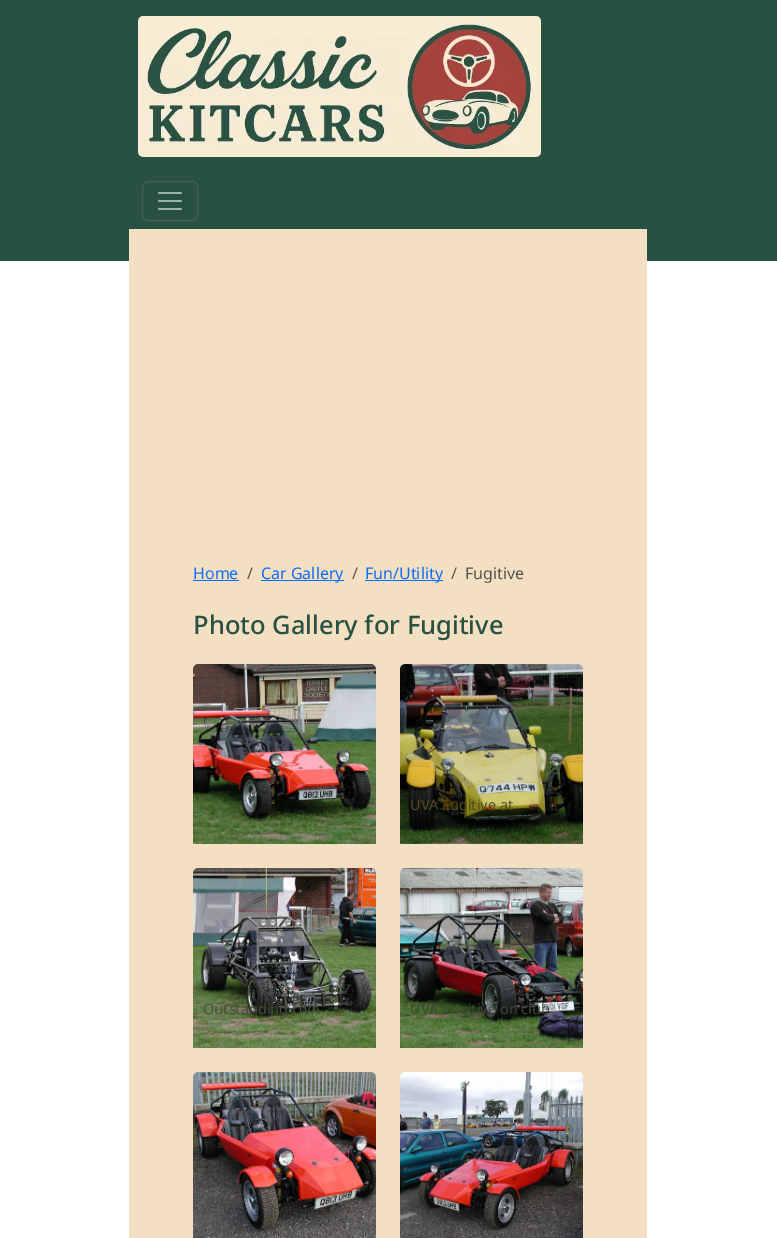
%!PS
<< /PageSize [777 1238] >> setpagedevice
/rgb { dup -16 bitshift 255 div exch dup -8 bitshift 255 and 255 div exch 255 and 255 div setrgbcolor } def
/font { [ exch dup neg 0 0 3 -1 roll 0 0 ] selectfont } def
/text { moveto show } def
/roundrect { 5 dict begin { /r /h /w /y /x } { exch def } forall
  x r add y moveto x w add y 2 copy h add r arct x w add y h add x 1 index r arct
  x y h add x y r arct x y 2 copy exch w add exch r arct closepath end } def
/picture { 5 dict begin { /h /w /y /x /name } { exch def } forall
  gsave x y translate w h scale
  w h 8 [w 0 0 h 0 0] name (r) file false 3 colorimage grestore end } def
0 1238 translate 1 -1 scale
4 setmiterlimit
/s1 { /NotoSans-Regular 16 font 16#0D6EFD rgb } def
/s2 { /NotoSans-Regular 16 font 16#56544F rgb } def
/s3 { /NotoSans-Medium 25.5 font 16#295143 rgb } def
/s4 { /NotoSans-Regular 14.5 font 16#514B1E rgb } def
/s5 { /NotoSans-Regular 14.5 font 16#464F39 rgb } def
/s6 { /NotoSans-Regular 14.5 font 16#3C4B33 rgb } def
16#295143 rgb
0 0 777 1238 rectfill
(pic1.raw) 138 16 403 141 picture
16#3E6256 rgb
142.5 181.5 55 39 5.5 roundrect stroke
(pic2.raw) 158 192 24 18 picture
16#FFFFFF rgb
0 261 129 977 rectfill
16#F3DFC2 rgb
129 229 518 1009 rectfill
s1
(Home) 193 579 text
193 580 46 1 rectfill
s2
(/) 247 579 text
16#0D6EFD rgb
261 580 83 1 rectfill
(Car Gallery) 261 579 text
s2
(/) 352 579 text
16#0D6EFD rgb
365 580 78 1 rectfill
(Fun/Utility) 365 579 text
s2
(/) 451 579 text
(Fugitive) 465 579 text
s3
(Photo Gallery for Fugitive) 193 634 text
(pic3.raw) 193 664 183 180 picture
(pic4.raw) 400 664 183 180 picture
s4
(UVA Fugitive at) 410 810 text
(pic5.raw) 193 868 183 180 picture
s5
(Outstanding UVA) 203 1014 text
(pic6.raw) 400 868 183 180 picture
s6
(UVA Fugitive on club) 410 1014 text
(pic7.raw) 193 1072 183 166 picture
(pic8.raw) 400 1072 183 166 picture
16#FFFFFF rgb
647 261 130 977 rectfill
showpage
